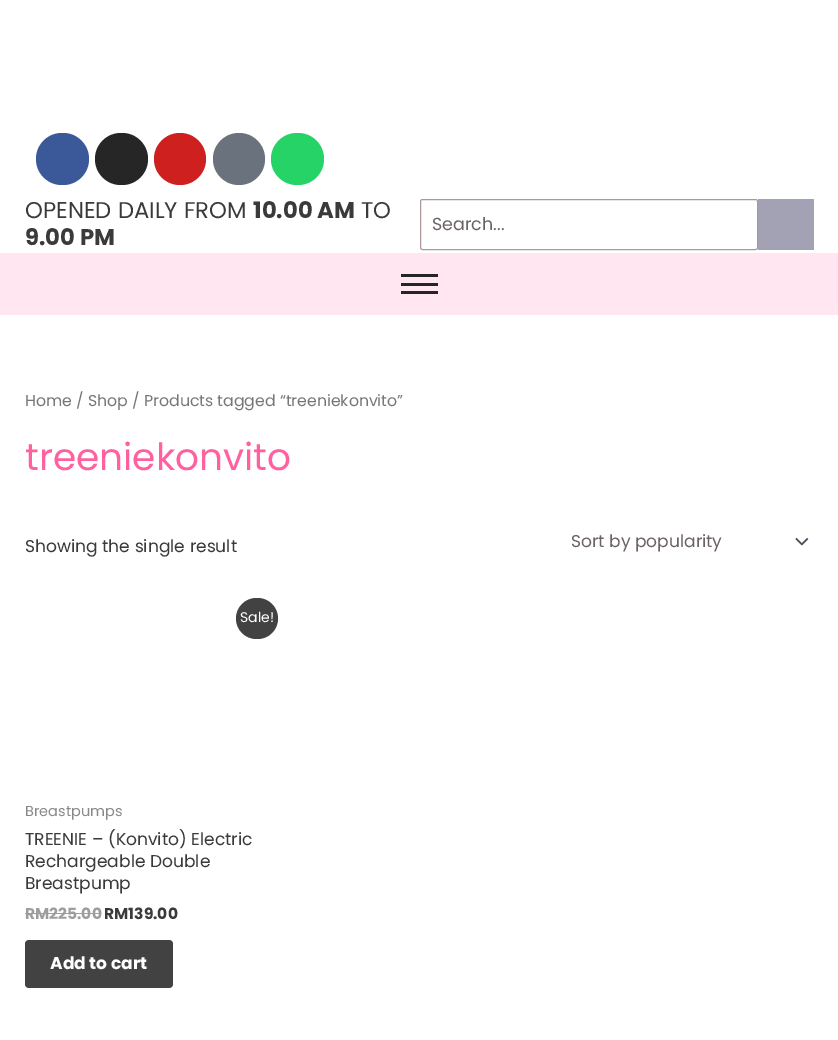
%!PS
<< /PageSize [838 1040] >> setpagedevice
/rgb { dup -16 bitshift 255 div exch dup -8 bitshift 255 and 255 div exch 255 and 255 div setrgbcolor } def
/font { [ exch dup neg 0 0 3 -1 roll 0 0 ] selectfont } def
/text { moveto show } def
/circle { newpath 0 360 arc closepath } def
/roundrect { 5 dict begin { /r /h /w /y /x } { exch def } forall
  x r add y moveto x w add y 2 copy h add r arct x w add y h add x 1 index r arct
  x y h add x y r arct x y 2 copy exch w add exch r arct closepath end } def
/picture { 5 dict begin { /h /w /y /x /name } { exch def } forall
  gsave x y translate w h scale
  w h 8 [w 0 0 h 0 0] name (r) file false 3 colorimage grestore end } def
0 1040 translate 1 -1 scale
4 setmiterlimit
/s1 { /Poppins-Regular 22.75 font 16#3A3A3A rgb } def
/s2 { /Poppins-Bold 22.75 font 16#3A3A3A rgb } def
/s3 { /Poppins-Regular 17.5 font 16#6B6363 rgb } def
/s4 { /Poppins-Regular 15.75 font 16#777777 rgb } def
/s5 { /Poppins-Regular 37.5 font 16#FF61A0 rgb } def
/s6 { /Poppins-Regular 17.1 font 16#3A3A3A rgb } def
/s7 { /Poppins-Regular 17.1 font 16#6B6363 rgb } def
/s8 { /Poppins-Regular 14 font 16#FFFFFF rgb } def
/s9 { /Poppins-Regular 14.5 font 16#898989 rgb } def
/s10 { /Poppins-Bold 15.5 font 16#9D9D9D rgb } def
/s11 { /Poppins-Bold 15.5 font 16#3A3A3A rgb } def
/s12 { /Poppins-Bold 17.1 font 16#FFFFFF rgb } def
16#FFFFFF rgb
0 0 838 1040 rectfill
16#3B5998 rgb
36 133 53 52 26 roundrect fill
16#262626 rgb
95 133 53 52 26 roundrect fill
16#CD201F rgb
180 159 26 circle fill
16#69727D rgb
239 159 26 circle fill
16#25D366 rgb
271 133 53 52 26 roundrect fill
s1
(OPENED DAILY FROM) 25 218 text
s2
(10.00 AM) 253 218 text
s1
(TO) 361 218 text
s2
(9.00 PM) 25 245 text
16#AF9797 rgb
420.5 199.5 337 50 2 roundrect stroke
s3
(Search...) 432 230 text
16#A2A2B4 rgb
758 199 56 51 rectfill
16#FFE6F0 rgb
0 253 838 62 rectfill
16#252525 rgb
401 274 37 3 rectfill
401 283 37 3 rectfill
401 291 37 3 rectfill
s4
(Home / Shop / Products tagged “treeniekonvito”) 25 406 text
s5
(treeniekonvito) 25 470 text
s6
(Showing the single result) 25 552 text
(pic1.raw) 795 538 14 8 picture
s7
(Sort by popularity) 571 547 text
16#424242 rgb
236 598 42 41 20.5 roundrect fill
s8
(Sale!) 240 622 text
s9
(Breastpumps) 25 816 text
s6
(TREENIE – \(Konvito\) Electric) 25 845 text
(Rechargeable Double) 25 867 text
(Breastpump) 25 889 text
s10
(RM225.00) 25 919 text
25 913 76 1 rectfill
s11
(RM139.00) 104 919 text
16#424242 rgb
25 940 148 48 4 roundrect fill
s12
(Add to cart) 50 969 text
showpage
